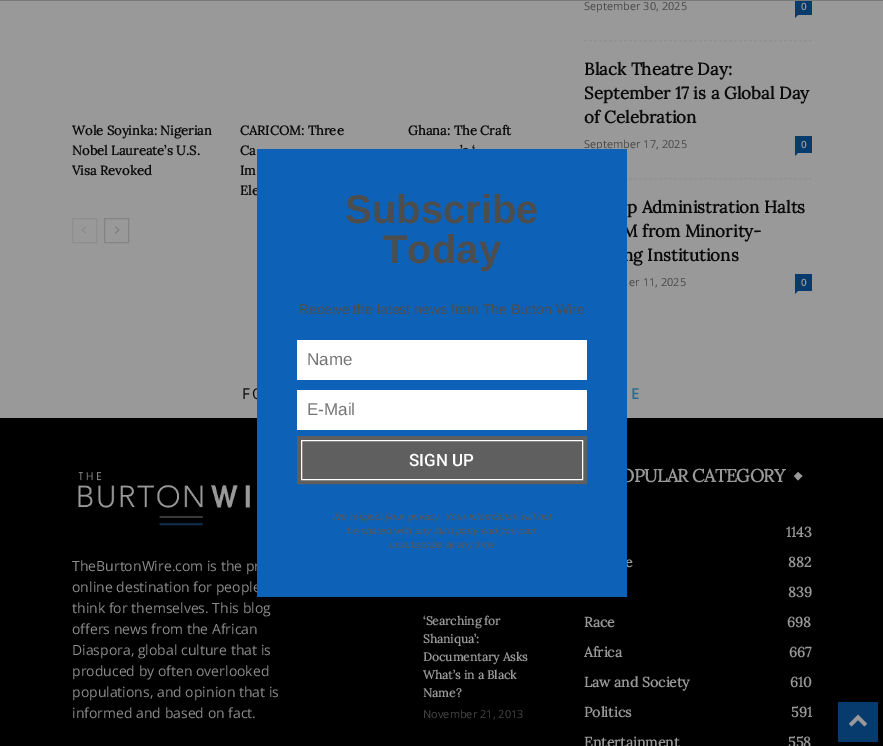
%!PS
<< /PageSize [883 746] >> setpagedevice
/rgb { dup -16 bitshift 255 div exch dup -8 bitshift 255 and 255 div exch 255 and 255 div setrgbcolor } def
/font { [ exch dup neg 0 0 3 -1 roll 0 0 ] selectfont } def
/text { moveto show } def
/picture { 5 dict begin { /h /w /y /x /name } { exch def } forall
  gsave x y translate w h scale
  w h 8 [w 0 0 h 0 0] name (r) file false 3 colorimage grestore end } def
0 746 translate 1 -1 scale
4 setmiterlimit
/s1 { /Lora-Bold 13 font 16#0A0A0A rgb } def
/s2 { /OpenSans-Regular 11 font 16#474747 rgb } def
/s3 { /OpenSans-SemiBold 10 font 16#999999 rgb } def
/s4 { /Lora-Bold 17 font 16#0A0A0A rgb } def
/s5 { /OpenSans-Regular 14 font 16#8C8C8C rgb } def
/s6 { /Lora-Bold 12 font 16#999999 rgb } def
/s7 { /Lora-Bold 14 font 16#999999 rgb } def
/s8 { /LiberationSans-Bold 40 font 16#4D4D4D rgb } def
/s9 { /LiberationSans-Regular 14 font 16#4D4D4D rgb } def
/s10 { /LiberationSans-Regular 17 font 16#757575 rgb } def
/s11 { /Roboto-Medium 17 font 16#FFFFFF rgb } def
/s12 { /LiberationSans-Italic 10 font 16#585858 rgb } def
16#999999 rgb
0 0 883 746 rectfill
16#797979 rgb
0 0 883 1 rectfill
s1
(Wole Soyinka: Nigerian) 72 135 text
(Nobel Laureate’s U.S.) 72 155 text
(Visa Revoked) 72 175 text
(CARICOM: Three) 240 135 text
(Ca) 240 155 text
(Im) 240 175 text
(Ele) 240 195 text
(Ghana: The Craft) 408 135 text
(’s ‘) 460 155 text
16#8F8F8F rgb
72.5 218.5 24 24 rectstroke
(pic1.raw) 81 226 5 8 picture
16#848484 rgb
104.5 218.5 24 24 rectstroke
(pic2.raw) 115 226 5 8 picture
16#919191 rgb
[3 2] 0 setdash
584 40.5 moveto 812 40.5 lineto stroke
s2
(September 30, 2025) 584 10 text
16#073B6E rgb
795 1 17 14 rectfill
s3
(0) 801 10 text
16#073B6E rgb
795 15 moveto 798 15 lineto 795 18 lineto closepath fill
16#919191 rgb
584 178.5 moveto 812 178.5 lineto stroke
s4
(Black Theatre Day:) 584 75 text
(September 17 is a Global Day) 584 99 text
(of Celebration) 584 123 text
s2
(September 17, 2025) 584 148 text
16#073B6E rgb
795 136 17 17 rectfill
s3
(0) 801 148 text
16#073B6E rgb
795 153 moveto 798 153 lineto 795 156 lineto closepath fill
s4
(p Administration Halts) 627 213 text
(M from Minority-) 622 237 text
(ng Institutions) 623 261 text
s2
(er 11, 2025) 629 286 text
16#073B6E rgb
795 274 17 17 rectfill
s3
(0) 801 286 text
16#073B6E rgb
795 291 moveto 798 291 lineto 795 294 lineto closepath fill
/OpenSans-Regular 15 font
16#0A0A0A rgb
242 399 moveto 2 0 (FO) ashow
/OpenSans-SemiBold 15 font
16#2E6B8E rgb
631 399 moveto 2 0 (E) ashow
16#000000 rgb
0 418 883 328 rectfill
(pic3.raw) 78 472 172 54 picture
s5
(TheBurtonWire.com is the pr) 72 571 text
(online destination for people) 72 592 text
(think for themselves. This blog) 72 613 text
(offers news from the African) 72 634 text
(Diaspora, global culture that is) 72 655 text
(produced by often overlooked) 72 676 text
(populations, and opinion that is) 72 697 text
(informed and based on fact.) 72 718 text
s6
(‘Searching for) 423 625 text
(Shaniqua’:) 423 643 text
(Documentary Asks) 423 661 text
(What’s in a Black) 423 679 text
(Name?) 423 697 text
s2
(November 21, 2013) 423 718 text
/Lora-Bold 18 font
16#999999 rgb
620 482 moveto -0.6 0 (OPULAR CATEGORY) ashow
798 472 moveto 802.5 476 lineto 798 480.5 lineto 794 476 lineto closepath fill
s7
(1143) 786 537 text
(e) 625 567 text
(882) 788 567 text
(839) 788 597 text
(Race) 584 627 text
(698) 787 627 text
(Africa) 584 657 text
(667) 789 657 text
(Law and Society) 584 687 text
(610) 790 687 text
(Politics) 584 717 text
(591) 791 717 text
(Entertainment) 584 747 text
(558) 788 747 text
16#0D62B8 rgb
257 149 370 448 rectfill
s8
(Subscribe) 345 223 text
(Today) 383 263 text
s9
(Receive the latest news from The Burton Wire) 299 314 text
16#FFFFFF rgb
297 340 290 40 rectfill
s10
(Name) 307 365 text
16#FFFFFF rgb
297 390 290 40 rectfill
s10
(E-Mail) 307 415 text
16#5F5F5F rgb
4 setlinewidth
[] 0 setdash
299 438 286 44 rectstroke
301.5 440.5 moveto 582.5 440.5 lineto 582.5 479.5 lineto 301.5 479.5 lineto closepath gsave fill grestore
16#FFFFFF rgb
1 setlinewidth
stroke
s11
(SIGN UP) 409 466 text
s12
(We respect your privacy. Your information will not) 332 520 text
(be shared with any third party and you can) 347 534 text
(unsubscribe at any time) 389 548 text
16#073B6E rgb
838 702 40 40 rectfill
(pic4.raw) 849 714 18 13 picture
showpage
